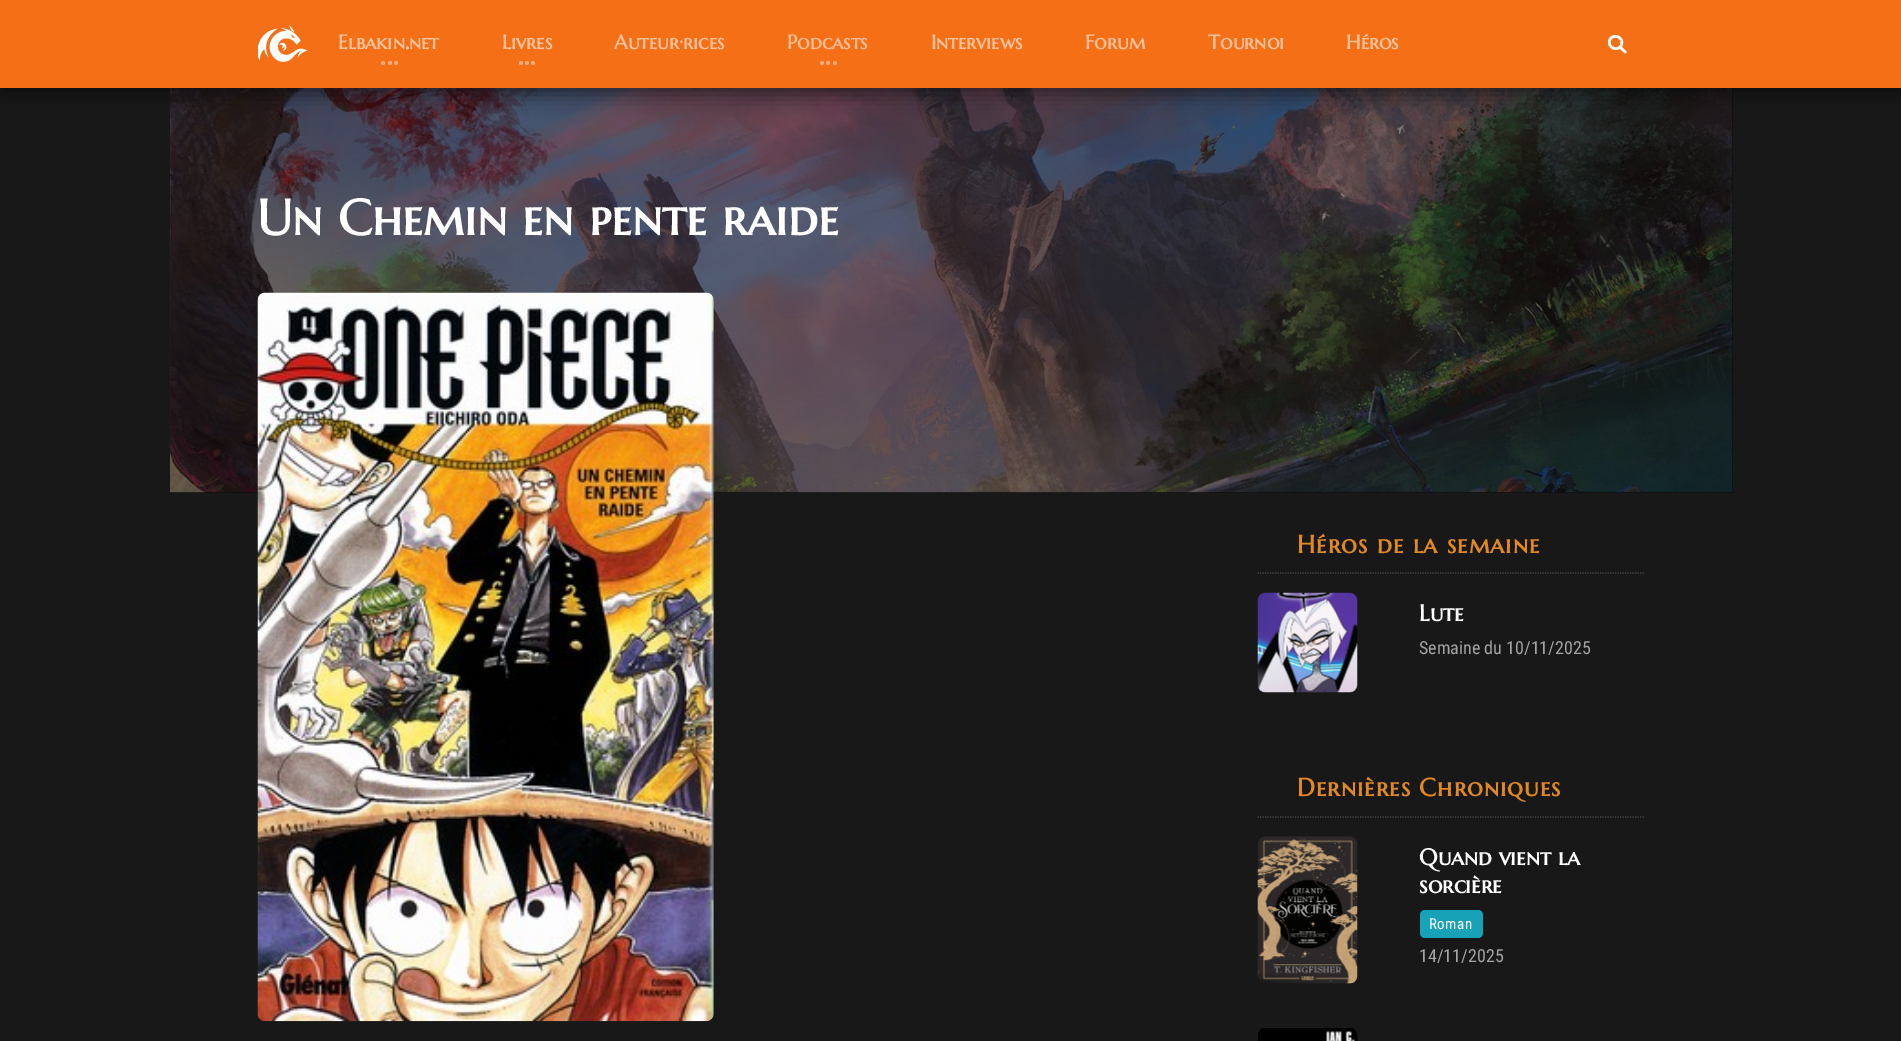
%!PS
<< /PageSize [1901 1041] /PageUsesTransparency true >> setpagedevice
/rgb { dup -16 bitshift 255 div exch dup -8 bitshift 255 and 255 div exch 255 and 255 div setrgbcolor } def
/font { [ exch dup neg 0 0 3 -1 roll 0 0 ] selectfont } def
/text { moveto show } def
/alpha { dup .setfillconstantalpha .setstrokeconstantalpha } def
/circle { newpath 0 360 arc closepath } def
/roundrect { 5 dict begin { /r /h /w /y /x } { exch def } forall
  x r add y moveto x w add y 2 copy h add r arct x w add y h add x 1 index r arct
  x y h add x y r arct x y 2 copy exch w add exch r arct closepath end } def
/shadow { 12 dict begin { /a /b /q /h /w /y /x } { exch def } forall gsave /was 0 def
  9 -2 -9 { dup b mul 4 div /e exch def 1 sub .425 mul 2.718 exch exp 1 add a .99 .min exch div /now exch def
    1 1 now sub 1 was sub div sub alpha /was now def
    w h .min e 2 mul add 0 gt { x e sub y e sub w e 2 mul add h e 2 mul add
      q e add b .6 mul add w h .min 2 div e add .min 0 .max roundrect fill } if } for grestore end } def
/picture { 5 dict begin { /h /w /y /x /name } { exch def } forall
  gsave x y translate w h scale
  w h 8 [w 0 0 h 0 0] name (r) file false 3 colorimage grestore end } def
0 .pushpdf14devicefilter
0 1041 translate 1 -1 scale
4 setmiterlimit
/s1 { /MarcellusSC-Bold 20 font 16#FFFFFF rgb } def
/s2 { /MarcellusSC-Bold 20 font 16#FBC19B rgb } def
/s3 { /MarcellusSC-Bold 20 font 16#FABC93 rgb } def
/s4 { /MarcellusSC-Bold 50 font 16#FFFFFF rgb } def
/s5 { /MarcellusSC-Bold 23 font 16#FFFFFF rgb } def
/s6 { /RobotoCondensed-Regular 18 font 16#A3A3A3 rgb } def
16#181818 rgb
0 0 1901 1041 rectfill
16#0E0E0E rgb
170 88 1563 405 rectfill
(pic2.raw) 170 88 1563 405 picture
16#000000 rgb
0 6 1901 88 0 9.5 0.5 shadow
16#F56F16 rgb
0 0 1901 88 rectfill
(pic1.raw) 258 25 50 37 picture
s1
(.) 405 49 text
s2
(Elbakin.net) 338 49 text
16#F9A973 rgb
383 63 2 circle fill
396 63 2 circle fill
390 63 2 circle fill
s2
(Livres) 502 49 text
16#F9A973 rgb
521 63 2 circle fill
533 63 2 circle fill
527 63 2 circle fill
s2
(Auteur·rices) 614 49 text
s3
(Podcasts) 787 49 text
16#F9A973 rgb
822 63 2 circle fill
835 63 2 circle fill
828 63 2 circle fill
s2
(Interviews) 931 49 text
(Forum) 1085 49 text
(Tournoi) 1208 49 text
(Héros) 1346 49 text
16#FFFFFF rgb
2.5 setlinewidth
1611 38 moveto 1617 32.5 1626 41 1620 47 curveto 1614 52.5 1605.5 44 1611 38 curveto closepath stroke
1619.5 48.5 moveto 1621.5 46.5 lineto 1627 52 lineto 1625 53.5 lineto closepath fill
s4
(Un Chemin en pente raide) 257 235 text
(pic3.raw) 257 292 457 730 picture
/MarcellusSC-Bold 25 font
16#E08821 rgb
1297 553 moveto 1 0 (Héros de la semaine) ashow
16#464646 rgb
1.2 setlinewidth
[1.25 1.25] 0 setdash
1257.5 573 moveto 1645 573 lineto stroke
(pic4.raw) 1257 592 101 101 picture
s5
(Lute) 1419 621 text
s6
(Semaine du 10/11/2025) 1419 654 text
/MarcellusSC-Bold 25 font
16#E08821 rgb
1297 796 moveto 1 0 (Dernières Chroniques) ashow
16#464646 rgb
1257.5 817 moveto 1645 817 lineto stroke
(pic5.raw) 1257 836 101 148 picture
s5
(Quand vient la) 1419 865 text
(sorcière) 1419 893 text
16#17A2B8 rgb
1420 910 63 28 5 roundrect fill
/RobotoCondensed-Regular 15 font
16#FFFFFF rgb
1429 929 moveto 0.5 0 (Roman) ashow
s6
(14/11/2025) 1419 962 text
(pic6.raw) 1258 1028 100 13 picture
.poppdf14devicefilter showpage
